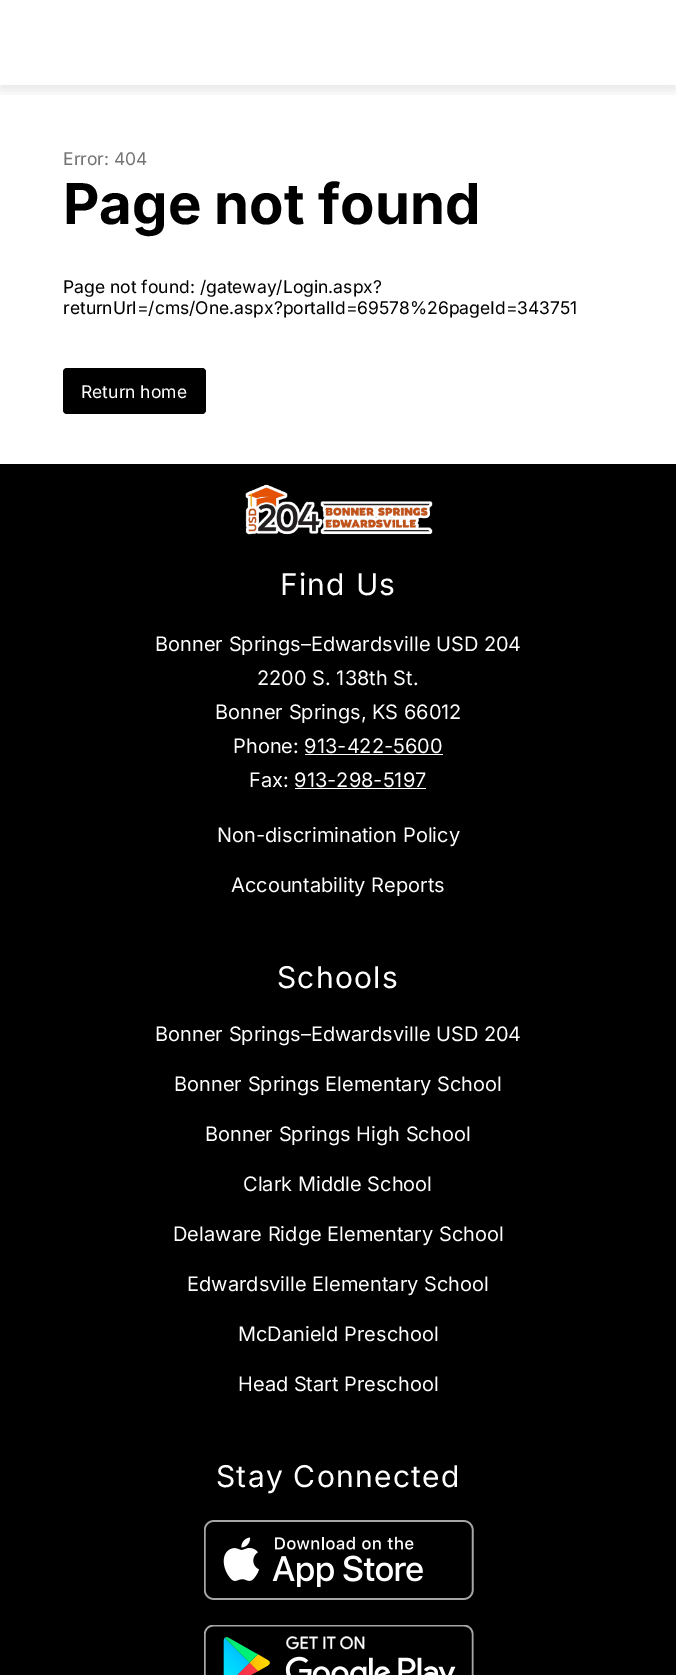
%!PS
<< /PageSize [676 1675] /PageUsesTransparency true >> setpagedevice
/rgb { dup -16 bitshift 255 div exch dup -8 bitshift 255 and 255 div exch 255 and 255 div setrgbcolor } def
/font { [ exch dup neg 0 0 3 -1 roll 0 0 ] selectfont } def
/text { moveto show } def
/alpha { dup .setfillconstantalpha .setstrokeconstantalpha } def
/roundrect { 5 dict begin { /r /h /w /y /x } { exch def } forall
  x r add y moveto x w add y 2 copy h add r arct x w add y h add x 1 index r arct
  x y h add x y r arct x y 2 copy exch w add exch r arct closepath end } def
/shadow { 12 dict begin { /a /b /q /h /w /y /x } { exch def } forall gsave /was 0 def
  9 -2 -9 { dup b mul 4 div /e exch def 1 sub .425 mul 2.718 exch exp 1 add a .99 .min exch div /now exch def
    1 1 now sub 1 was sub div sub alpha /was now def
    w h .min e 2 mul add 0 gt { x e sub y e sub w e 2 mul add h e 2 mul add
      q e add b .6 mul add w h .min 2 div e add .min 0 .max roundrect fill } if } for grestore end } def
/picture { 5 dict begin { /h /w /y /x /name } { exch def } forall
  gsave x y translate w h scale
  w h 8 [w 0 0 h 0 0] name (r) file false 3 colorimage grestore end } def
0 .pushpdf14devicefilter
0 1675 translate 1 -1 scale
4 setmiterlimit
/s1 { /Inter-Regular 17.5 font 16#747474 rgb } def
/s2 { /Inter-Bold 56.25 font 16#000000 rgb } def
/s3 { /Inter-Regular 17.5 font 16#000000 rgb } def
/s4 { /Inter-Regular 17.5 font 16#FFFFFF rgb } def
/s5 { /Inter-Regular 20 font 16#FFFFFF rgb } def
16#FFFFFF rgb
0 0 676 1675 rectfill
gsave
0 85 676 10 rectclip
16#000000 rgb
0 -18 676 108 0 6 0.1 shadow
grestore
s1
(Error: 404) 63 165 text
s2
(Page not found) 63 224 text
s3
(Page not found: /gateway/Login.aspx?) 63 293 text
(returnUrl=/cms/One.aspx?portalId=69578%26pageId=343751) 63 314 text
63 368 143 46 4 roundrect fill
s4
(Return home) 81 398 text
16#000000 rgb
0 464 676 1211 rectfill
(pic1.raw) 245 484 188 51 picture
/Inter-Regular 30 font
16#FFFFFF rgb
280 595 moveto 1.25 0 (Find Us) ashow
s5
(Bonner Springs–Edwardsville USD 204) 155 651 text
(2200 S. 138th St.) 257 685 text
(Bonner Springs, KS 66012) 215 719 text
(Phone: 913-422-5600) 233 753 text
305 754 138 1 rectfill
(Fax: 913-298-5197) 249 787 text
295 788 131 1 rectfill
(Non-discrimination Policy) 217 842 text
(Accountability Reports) 231 892 text
/Inter-Regular 30 font
277 988 moveto 1.25 0 (Schools) ashow
s5
(Bonner Springs–Edwardsville USD 204) 155 1041 text
(Bonner Springs Elementary School) 174 1091 text
(Bonner Springs High School) 205 1141 text
(Clark Middle School) 243 1191 text
(Delaware Ridge Elementary School) 173 1241 text
(Edwardsville Elementary School) 187 1291 text
(McDanield Preschool) 238 1341 text
(Head Start Preschool) 238 1391 text
/Inter-Regular 30 font
216 1487 moveto 1.25 0 (Stay Connected) ashow
(pic2.raw) 204 1520 270 80 picture
(pic3.raw) 204 1625 270 50 picture
.poppdf14devicefilter showpage
